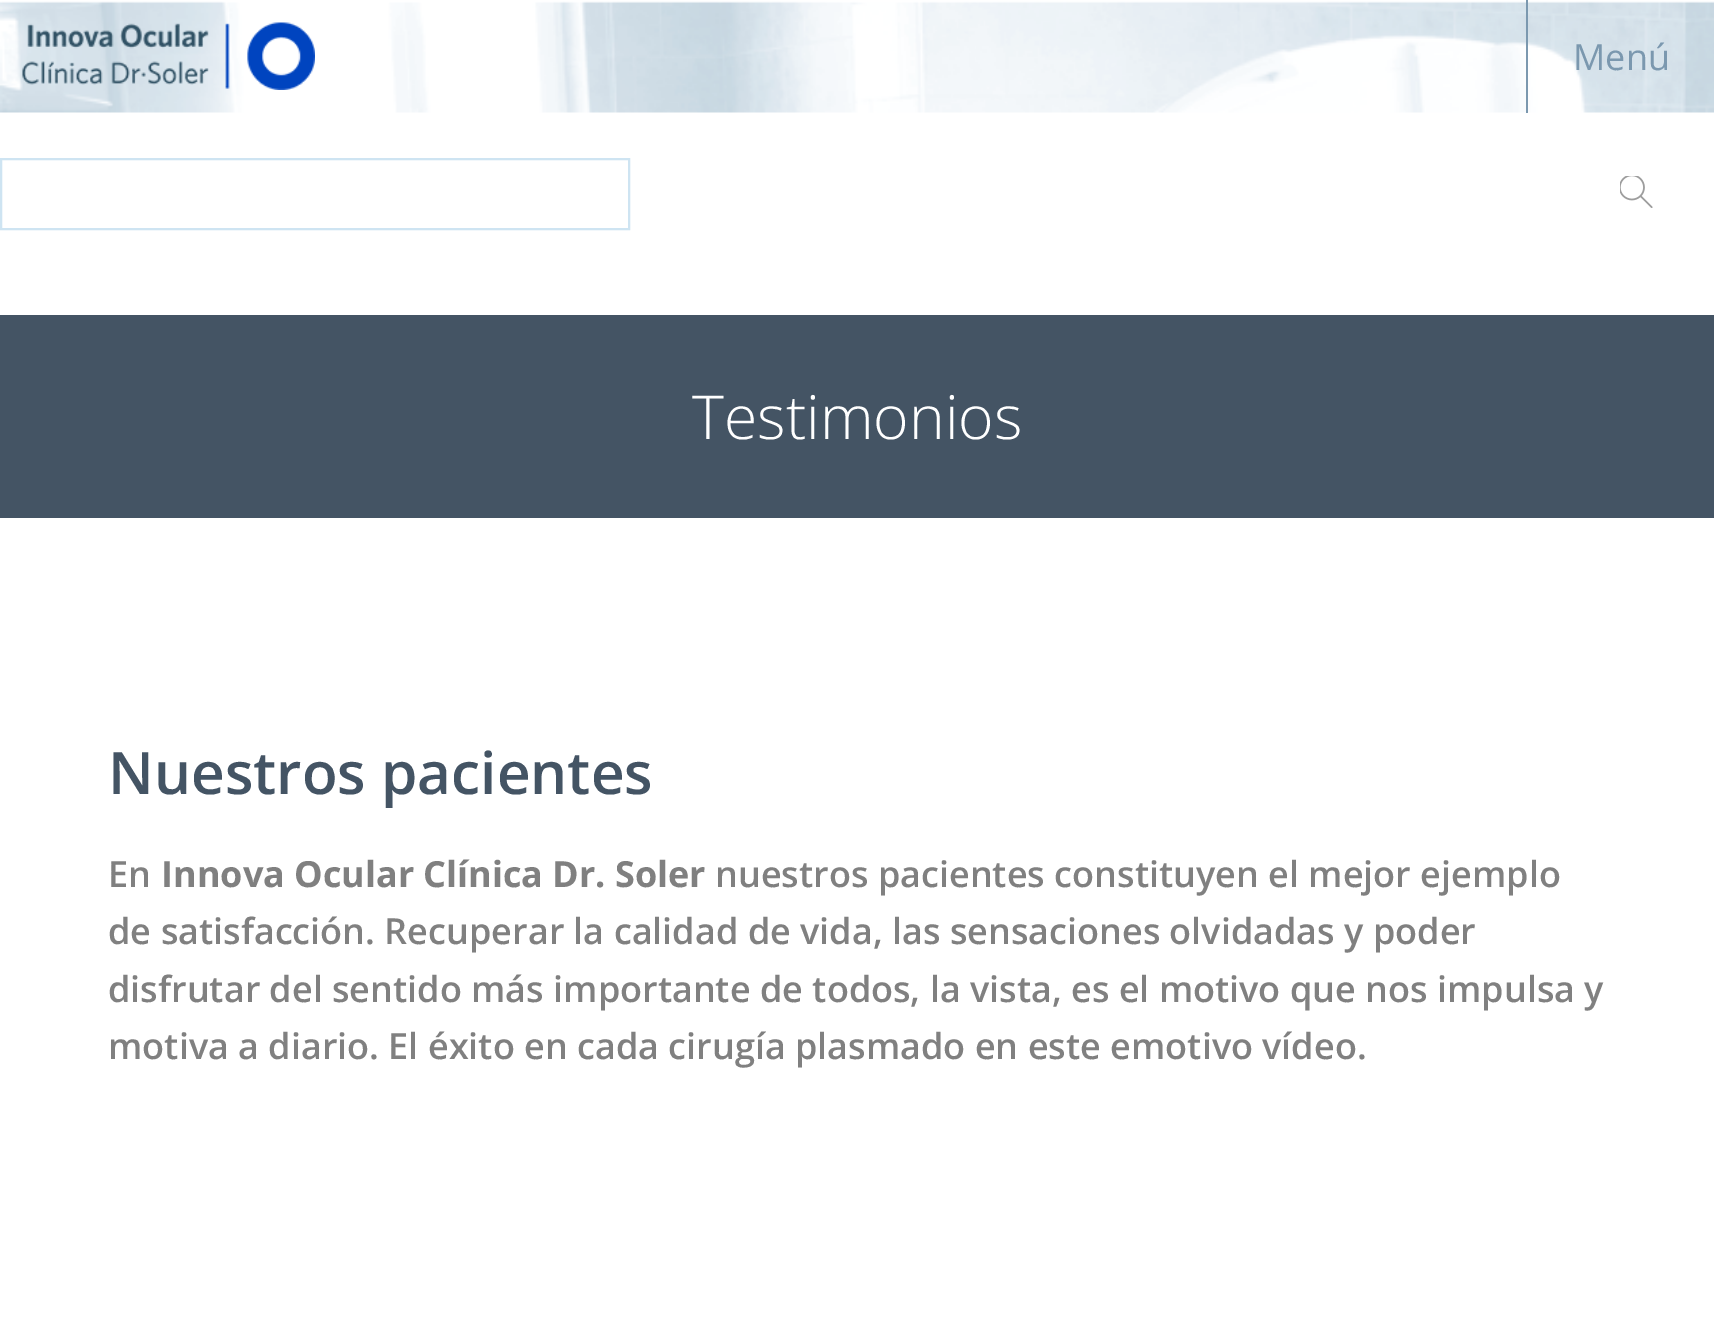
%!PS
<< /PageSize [1714 1333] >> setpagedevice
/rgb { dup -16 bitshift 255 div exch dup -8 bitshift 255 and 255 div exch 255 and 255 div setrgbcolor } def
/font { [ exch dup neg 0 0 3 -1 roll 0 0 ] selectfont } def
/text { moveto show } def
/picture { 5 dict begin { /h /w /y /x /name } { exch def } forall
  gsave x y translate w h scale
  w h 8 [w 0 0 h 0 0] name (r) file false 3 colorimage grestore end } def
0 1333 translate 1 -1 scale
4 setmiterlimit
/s1 { /OpenSans-Regular 36 font 16#7B98AF rgb } def
/s2 { /OpenSans-Light 60.75 font 16#FFFFFF rgb } def
/s3 { /OpenSans-SemiBold 58.5 font 16#445464 rgb } def
/s4 { /OpenSans-SemiBold 36 font 16#808080 rgb } def
/s5 { /OpenSans-Bold 36 font 16#808080 rgb } def
16#FFFFFF rgb
0 0 1714 1333 rectfill
(pic1.raw) 0 1 1714 112 picture
(pic2.raw) 22 22 293 68 picture
16#7B98AF rgb
1526 0 2 113 rectfill
s1
(Menú) 1573 70 text
16#CEE4F2 rgb
2 setlinewidth
1 159 628 70 rectstroke
(pic3.raw) 1620 176 33 32 picture
16#445464 rgb
0 315 1714 203 rectfill
s2
(Testimonios) 692 439 text
s3
(Nuestros pacientes) 108 794 text
s4
(En) 108 887 text
s5
(Innova Ocular Clínica Dr. Soler) 161 887 text
s4
(nuestros pacientes constituyen el mejor ejemplo) 715 887 text
(de satisfacción. Recuperar la calidad de vida, las sensaciones olvidadas y poder) 108 944 text
(disfrutar del sentido más importante de todos, la vista, es el motivo que nos impulsa y) 108 1002 text
(motiva a diario. El éxito en cada cirugía plasmado en este emotivo vídeo.) 108 1059 text
showpage
